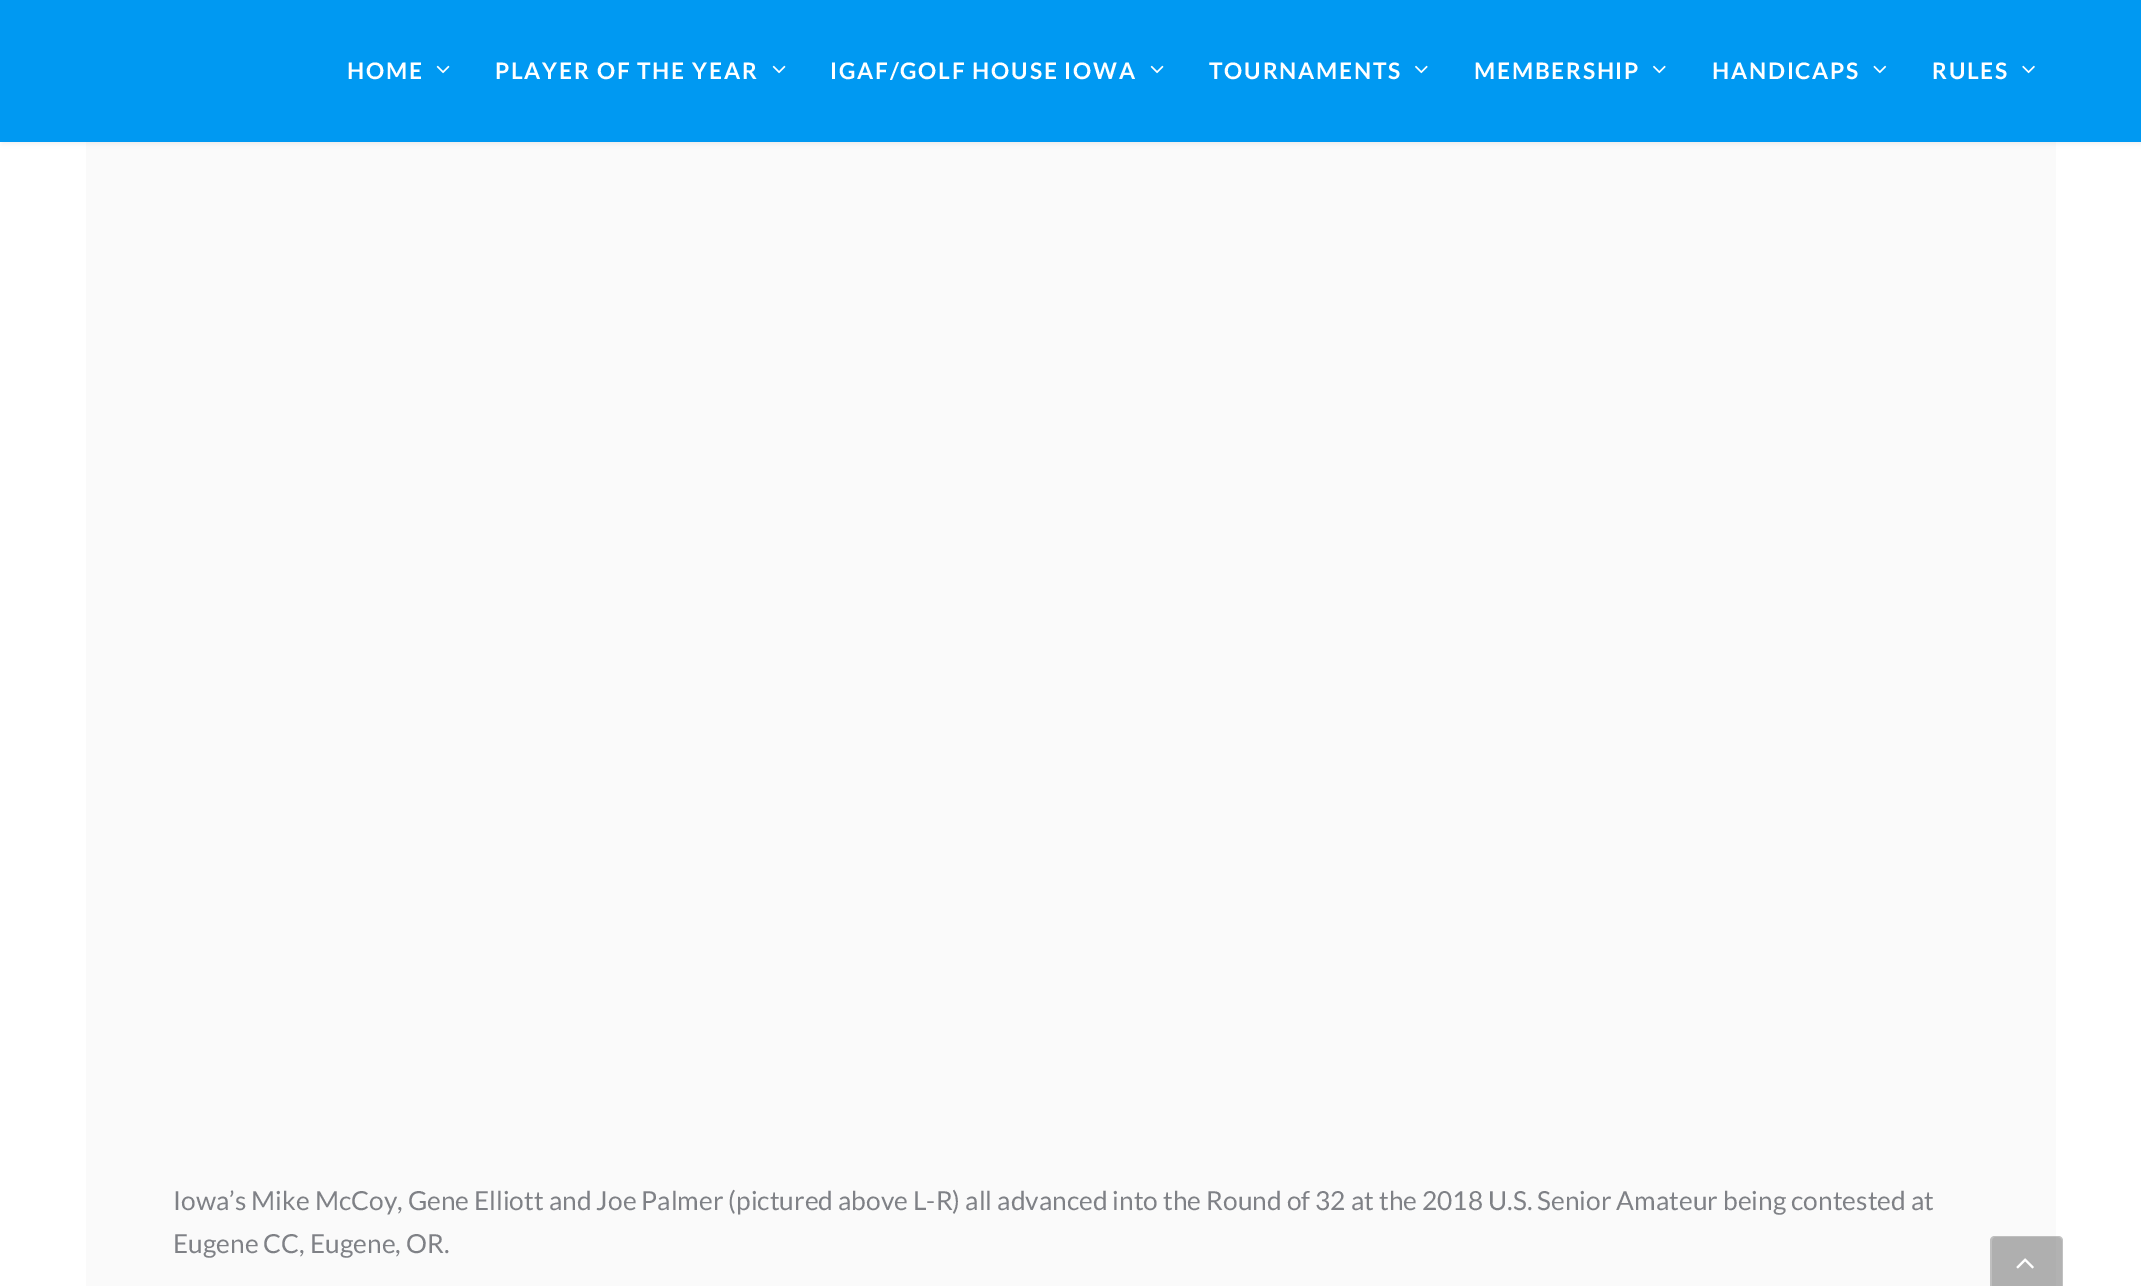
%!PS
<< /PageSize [2141 1286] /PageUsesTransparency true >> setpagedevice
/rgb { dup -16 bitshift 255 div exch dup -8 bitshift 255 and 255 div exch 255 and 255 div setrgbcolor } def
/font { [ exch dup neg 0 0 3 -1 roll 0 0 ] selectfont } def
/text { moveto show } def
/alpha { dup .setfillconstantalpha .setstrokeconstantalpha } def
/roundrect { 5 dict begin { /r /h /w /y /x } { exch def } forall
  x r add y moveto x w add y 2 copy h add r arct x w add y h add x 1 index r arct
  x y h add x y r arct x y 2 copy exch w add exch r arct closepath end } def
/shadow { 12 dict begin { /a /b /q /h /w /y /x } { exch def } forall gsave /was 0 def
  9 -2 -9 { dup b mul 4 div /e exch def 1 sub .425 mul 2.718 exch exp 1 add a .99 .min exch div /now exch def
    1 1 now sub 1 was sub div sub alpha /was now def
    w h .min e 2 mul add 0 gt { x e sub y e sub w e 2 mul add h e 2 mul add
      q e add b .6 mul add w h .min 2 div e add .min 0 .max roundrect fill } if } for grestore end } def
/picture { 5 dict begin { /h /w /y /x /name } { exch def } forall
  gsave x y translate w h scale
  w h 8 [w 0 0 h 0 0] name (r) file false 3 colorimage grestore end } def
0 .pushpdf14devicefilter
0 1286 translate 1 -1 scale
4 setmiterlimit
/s1 { /Lato-Regular 26.25 font 16#7F8186 rgb } def
16#FFFFFF rgb
0 0 2141 1286 rectfill
16#FAFAFA rgb
86 142 1970 1144 rectfill
16#000000 rgb
2 2 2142 142 0 2.5 0.05 shadow
16#0099F2 rgb
0 0 2141 142 rectfill
/Lato-Bold 22.75 font
16#FFFFFF rgb
347 79 moveto 1.75 0 (HOME) ashow
(pic1.raw) 436 65 14 9 picture
495 79 moveto 1.75 0 (PLAYER OF THE YEAR) ashow
(pic1.raw) 772 65 14 9 picture
830 79 moveto 1.75 0 (IGAF/GOLF HOUSE IOWA) ashow
(pic1.raw) 1150 65 14 9 picture
1209 79 moveto 1.75 0 (TOURNAMENTS) ashow
(pic2.raw) 1415 65 13 9 picture
1474 79 moveto 1.75 0 (MEMBERSHIP) ashow
(pic2.raw) 1653 65 13 9 picture
1712 79 moveto 1.75 0 (HANDICAPS) ashow
(pic3.raw) 1873 65 14 9 picture
1932 79 moveto 1.75 0 (RULES) ashow
(pic4.raw) 2022 65 13 9 picture
s1
(Iowa’s Mike McCoy, Gene Elliott and Joe Palmer \(pictured above L-R\) all advanced into the Round of 32 at the 2018 U.S. Senior Amateur being contested at) 173 1210 text
(Eugene CC, Eugene, OR.) 173 1253 text
0.3 alpha
16#000000 rgb
1995 1236 moveto 2058 1236 lineto 2061 1236 2063 1238 2063 1241 curveto 2063 1286 lineto 1990 1286 lineto 1990 1241 lineto 1990 1238 1992 1236 1995 1236 curveto closepath fill
0.2 alpha
16#FFFFFF rgb
1995 1236 moveto 2058 1236 lineto 2061 1236 2063 1238 2063 1241 curveto 2063 1286 lineto 1990 1286 lineto 1990 1241 lineto 1990 1238 1992 1236 1995 1236 curveto closepath 1995 1237 moveto 2058 1237 lineto 2060 1237 2062 1239 2062 1241 curveto 2062 1286 lineto 1992 1286 lineto 1992 1241 lineto 1992 1239 1993 1237 1995 1237 curveto closepath eofill
1 alpha
(pic5.raw) 2016 1258 18 11 picture
.poppdf14devicefilter showpage
